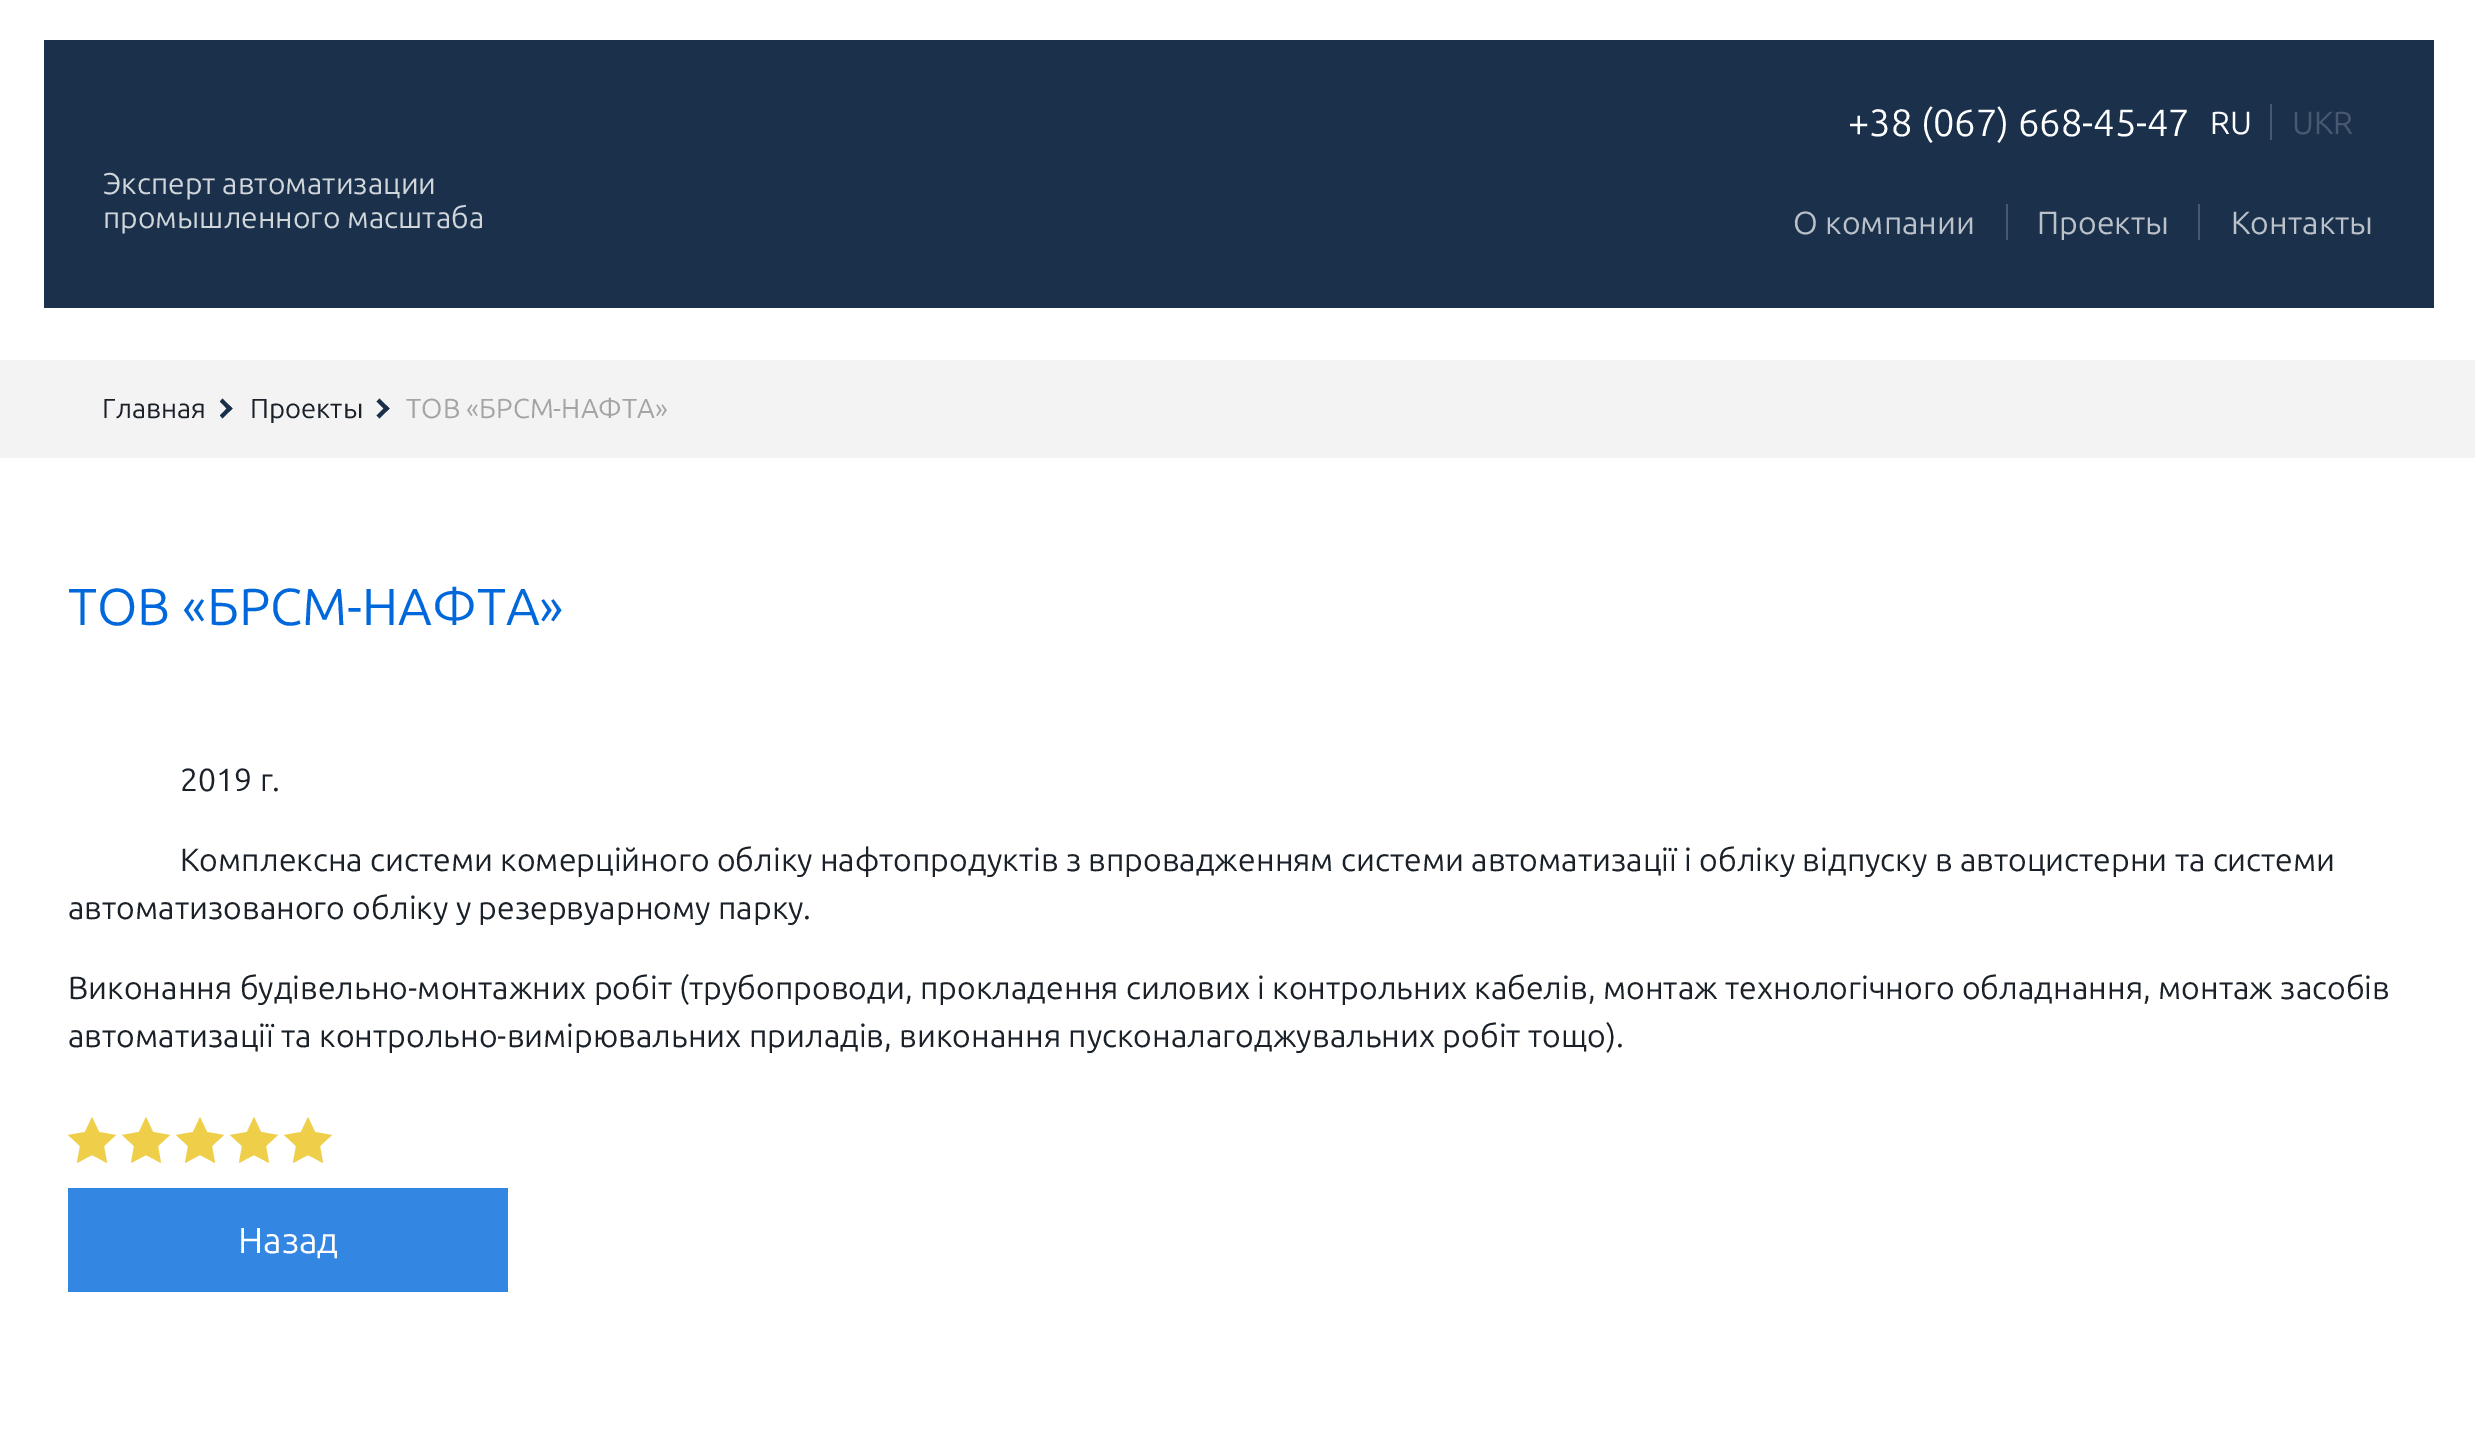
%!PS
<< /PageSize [2475 1455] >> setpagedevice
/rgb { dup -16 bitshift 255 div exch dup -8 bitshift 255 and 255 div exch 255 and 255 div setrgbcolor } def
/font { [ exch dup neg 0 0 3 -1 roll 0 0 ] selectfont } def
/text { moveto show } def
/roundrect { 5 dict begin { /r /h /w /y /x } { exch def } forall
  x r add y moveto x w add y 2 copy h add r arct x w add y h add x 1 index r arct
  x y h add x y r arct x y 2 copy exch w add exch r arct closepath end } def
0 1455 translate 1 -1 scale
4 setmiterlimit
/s1 { /Ubuntu-Regular 30 font 16#D1D6DB rgb } def
/s2 { /Ubuntu-Regular 38 font 16#FFFFFF rgb } def
/s3 { /Ubuntu-Regular 32 font 16#FFFFFF rgb } def
/s4 { /Ubuntu-Regular 32 font 16#48596F rgb } def
/s5 { /Ubuntu-Regular 32 font 16#BAC1C9 rgb } def
/s6 { /Ubuntu-Regular 27.5 font 16#1A2129 rgb } def
/s7 { /Ubuntu-Regular 27.5 font 16#A4A4A4 rgb } def
/s8 { /Ubuntu-Regular 52 font 16#0068DB rgb } def
/s9 { /Ubuntu-Regular 32 font 16#1A2129 rgb } def
/s10 { /Ubuntu-Regular 36 font 16#FFFFFF rgb } def
16#FFFFFF rgb
0 0 2475 1455 rectfill
16#1A304B rgb
44 40 2390 268 rectfill
s1
(Эксперт автоматизации) 103 194 text
(промышленного масштаба) 103 228 text
s2
(+38 \(067\) 668-45-47) 1848 136 text
s3
(RU) 2210 134 text
16#48596F rgb
2270 104 2 36 1 roundrect fill
(UKR) 2292 134 text
s5
(О компании) 1793 234 text
16#48596F rgb
2006 204 2 36 1 roundrect fill
s5
(Проекты) 2037 234 text
16#48596F rgb
2198 204 2 36 1 roundrect fill
s5
(Контакты) 2231 234 text
16#F3F3F3 rgb
0 360 2475 98 rectfill
s6
(Главная) 102 418 text
16#192F4A rgb
220 401.5 moveto 222.5 398.5 lineto 232.5 408.5 lineto 229.5 411.5 lineto closepath fill
220 415.5 moveto 229.5 405.5 lineto 232.5 408.5 lineto 222.5 418.5 lineto closepath fill
s6
(Проекты) 250 418 text
16#192F4A rgb
376.5 401.5 moveto 379.5 398.5 lineto 389.5 408.5 lineto 386.5 411.5 lineto closepath fill
376.5 415.5 moveto 386.5 405.5 lineto 389.5 408.5 lineto 379.5 418.5 lineto closepath fill
s7
(ТОВ «БРСМ-НАФТА») 406 418 text
s8
(ТОВ «БРСМ-НАФТА») 68 625 text
s9
(2019 г.) 180 791 text
(Комплексна системи комерційного обліку нафтопродуктів з впровадженням системи автоматизації і обліку відпуску в автоцистерни та системи) 180 871 text
(автоматизованого обліку у резервуарному парку.) 68 919 text
(Виконання будівельно-монтажних робіт \(трубопроводи, прокладення силових і контрольних кабелів, монтаж технологічного обладнання, монтаж засобів) 68 999 text
(автоматизації та контрольно-вимірювальних приладів, виконання пусконалагоджувальних робіт тощо\).) 68 1047 text
16#EFCE4A rgb
92 1117 moveto 99 1132 lineto 116 1135 lineto 104 1146 lineto 107 1163 lineto 92 1155 lineto 77 1163 lineto 80 1146 lineto 68 1135 lineto 85 1132 lineto closepath fill
146 1117 moveto 153 1132 lineto 170 1135 lineto 158 1146 lineto 161 1163 lineto 146 1155 lineto 131 1163 lineto 134 1146 lineto 122 1135 lineto 139 1132 lineto closepath fill
200 1117 moveto 207 1132 lineto 224 1135 lineto 212 1146 lineto 215 1163 lineto 200 1155 lineto 185 1163 lineto 188 1146 lineto 176 1135 lineto 193 1132 lineto closepath fill
254 1117 moveto 261 1132 lineto 278 1135 lineto 266 1146 lineto 269 1163 lineto 254 1155 lineto 239 1163 lineto 242 1146 lineto 230 1135 lineto 247 1132 lineto closepath fill
308 1117 moveto 315 1132 lineto 332 1135 lineto 320 1146 lineto 323 1163 lineto 308 1155 lineto 293 1163 lineto 296 1146 lineto 284 1135 lineto 301 1132 lineto closepath fill
16#3386E2 rgb
68 1188 440 104 rectfill
s10
(Назад) 238 1253 text
showpage
